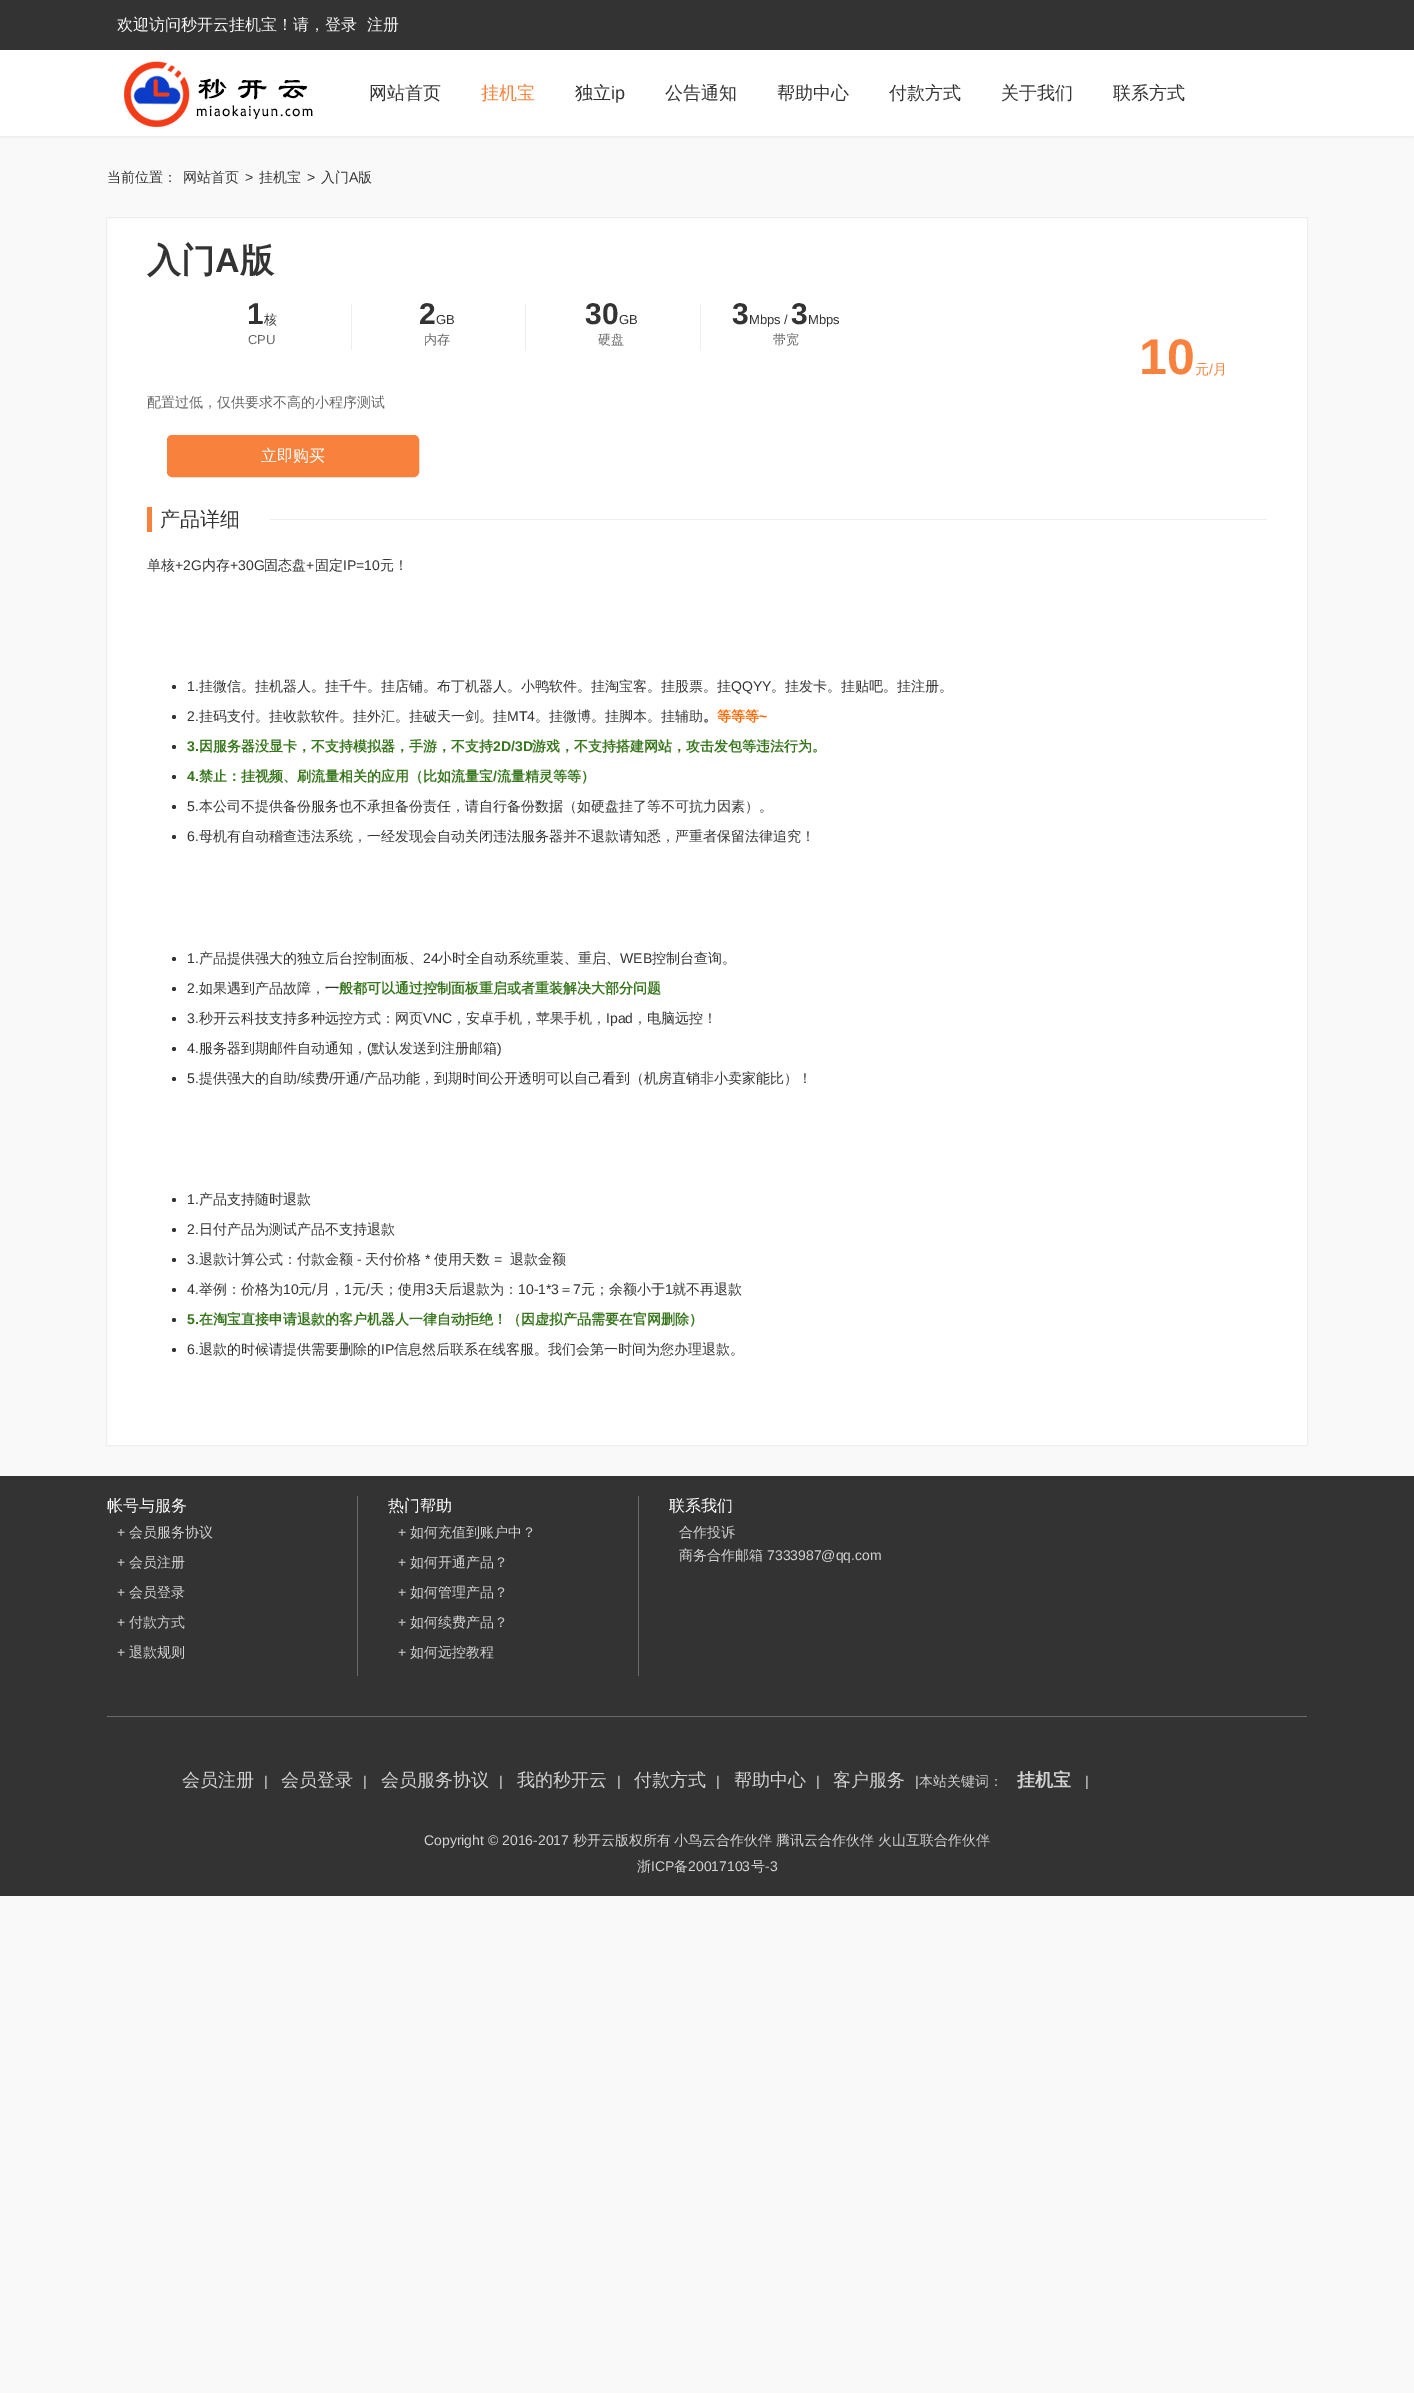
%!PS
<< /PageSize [1414 2393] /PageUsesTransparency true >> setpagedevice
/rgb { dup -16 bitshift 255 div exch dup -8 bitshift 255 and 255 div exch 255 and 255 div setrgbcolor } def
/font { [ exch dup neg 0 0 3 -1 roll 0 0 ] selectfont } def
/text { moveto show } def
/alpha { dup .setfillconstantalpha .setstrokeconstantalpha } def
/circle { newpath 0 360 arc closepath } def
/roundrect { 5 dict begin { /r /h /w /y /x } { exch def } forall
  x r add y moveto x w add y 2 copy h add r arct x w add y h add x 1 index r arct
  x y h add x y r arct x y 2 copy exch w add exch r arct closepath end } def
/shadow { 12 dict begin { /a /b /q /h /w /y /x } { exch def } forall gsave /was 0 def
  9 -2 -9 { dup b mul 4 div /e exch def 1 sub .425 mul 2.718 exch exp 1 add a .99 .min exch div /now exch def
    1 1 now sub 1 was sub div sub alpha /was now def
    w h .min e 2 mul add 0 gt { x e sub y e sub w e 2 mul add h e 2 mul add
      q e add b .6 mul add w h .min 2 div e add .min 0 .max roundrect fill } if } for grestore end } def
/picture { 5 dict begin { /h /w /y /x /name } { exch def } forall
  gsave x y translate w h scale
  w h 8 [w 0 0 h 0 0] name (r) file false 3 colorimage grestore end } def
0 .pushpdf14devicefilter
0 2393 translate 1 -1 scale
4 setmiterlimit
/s1 { /WenQuanYiZenHei-Medium 16 font 16#F5F5F5 rgb } def
/s2 { /WenQuanYiZenHei-Medium 18 font 16#333333 rgb } def
/s3 { /WenQuanYiZenHei-Medium 18 font 16#F8823D rgb } def
/s4 { /LiberationSans-Regular 18 font 16#333333 rgb } def
/s5 { /WenQuanYiZenHei-Medium 14 font 16#333333 rgb } def
/s6 { /LiberationSans-Regular 14 font 16#333333 rgb } def
/s7 { /WenQuanYiZenHei-Bold 34 font 16#333333 rgb } def
/s8 { /LiberationSans-Bold 34 font 16#333333 rgb } def
/s9 { /LiberationSans-Bold 30 font 16#333333 rgb } def
/s10 { /WenQuanYiZenHei-Medium 13 font 16#333333 rgb } def
/s11 { /LiberationSans-Regular 13 font 16#666666 rgb } def
/s12 { /LiberationSans-Regular 13 font 16#333333 rgb } def
/s13 { /WenQuanYiZenHei-Medium 13 font 16#666666 rgb } def
/s14 { /LiberationSans-Bold 50 font 16#F8823D rgb } def
/s15 { /WenQuanYiZenHei-Medium 14 font 16#F8823D rgb } def
/s16 { /LiberationSans-Regular 14 font 16#F8823D rgb } def
/s17 { /WenQuanYiZenHei-Medium 14 font 16#666666 rgb } def
/s18 { /WenQuanYiZenHei-Medium 16 font 16#FFFFFF rgb } def
/s19 { /WenQuanYiZenHei-Medium 20 font 16#333333 rgb } def
/s20 { /WenQuanYiZenHei-Bold 14 font 16#FF6600 rgb } def
/s21 { /LiberationSans-Bold 14 font 16#FF6600 rgb } def
/s22 { /WenQuanYiZenHei-Bold 14 font 16#333333 rgb } def
/s23 { /LiberationSans-Bold 14 font 16#38761D rgb } def
/s24 { /WenQuanYiZenHei-Bold 14 font 16#38761D rgb } def
/s25 { /LiberationSans-Regular 14 font 16#D2D2D2 rgb } def
/s26 { /WenQuanYiZenHei-Medium 14 font 16#D2D2D2 rgb } def
/s27 { /WenQuanYiZenHei-Medium 18 font 16#D2D2D2 rgb } def
/s28 { /WenQuanYiZenHei-Bold 18 font 16#D2D2D2 rgb } def
16#F9F9F9 rgb
0 0 1414 2393 rectfill
16#333333 rgb
0 0 1414 50 rectfill
s1
(欢迎访问秒开云挂机宝！请，登录) 117 30 text
(注册) 367 30 text
16#EEEEEE rgb
0 52 1414 86 0 1 1 shadow
16#FFFFFF rgb
0 50 1414 86 rectfill
(pic1.raw) 124 61 189 66 picture
s2
(网站首页) 369 99 text
s3
(挂机宝) 481 99 text
s2
(独立) 575 99 text
s4
(ip) 611 99 text
s2
(公告通知) 665 99 text
(帮助中心) 777 99 text
(付款方式) 889 99 text
(关于我们) 1001 99 text
(联系方式) 1113 99 text
s5
(当前位置：) 107 182 text
(网站首页) 183 182 text
s6
(>) 245 182 text
s5
(挂机宝) 259 182 text
s6
(>) 307 182 text
s5
(入门) 321 182 text
s6
(A) 349 182 text
s5
(版) 358 182 text
16#FFFFFF rgb
106.5 217.5 moveto 1307.5 217.5 lineto 1307.5 1445.5 lineto 106.5 1445.5 lineto closepath gsave fill grestore
16#EEEEEE rgb
stroke
s7
(入门) 147 272 text
s8
(A) 215 272 text
s7
(版) 240 272 text
s9
(1) 247 324 text
s10
(核) 264 324 text
s11
(CPU) 248 344 text
16#EEEEEE rgb
351 304 1 46 rectfill
s9
(2) 419 324 text
s12
(GB) 436 324 text
s13
(内存) 424 344 text
16#EEEEEE rgb
525 304 1 46 rectfill
s9
(30) 585 324 text
s12
(GB) 619 324 text
s13
(硬盘) 598 344 text
16#EEEEEE rgb
700 304 1 46 rectfill
s9
(3) 732 324 text
s12
(Mbps /) 749 324 text
s9
(3) 791 324 text
s12
(Mbps) 808 324 text
s13
(带宽) 773 344 text
s14
(10) 1139 374 text
s15
(元) 1195 374 text
s16
(/) 1209 374 text
s15
(月) 1213 374 text
s17
(配置过低，仅供要求不高的小程序测试) 147 407 text
16#F8823D rgb
167.5 435.5 251 41 4.5 roundrect gsave fill grestore
stroke
s18
(立即购买) 261 461 text
16#EEEEEE rgb
270 519 997 1 rectfill
16#F8823D rgb
147 507 5 25 rectfill
s19
(产品详细) 160 526 text
s5
(单核) 147 570 text
s6
(+2G) 175 570 text
s5
(内存) 202 570 text
s6
(+30G) 230 570 text
s5
(固态盘) 264 570 text
s6
(+) 306 570 text
s5
(固定) 315 570 text
s6
(IP=10) 343 570 text
s5
(元！) 380 570 text
174 687 2 circle fill
s6
(1.) 187 691 text
s5
(挂微信。挂机器人。挂千牛。挂店铺。布丁机器人。小鸭软件。挂淘宝客。挂股票。挂) 199 691 text
s6
(QQYY) 731 691 text
s5
(。挂发卡。挂贴吧。挂注册。) 771 691 text
174 717 2 circle fill
s6
(2.) 187 721 text
s5
(挂码支付。挂收款软件。挂外汇。挂破天一剑。挂) 199 721 text
s6
(MT4) 507 721 text
s5
(。挂微博。挂脚本。挂辅助) 535 721 text
s20
(等等等) 717 721 text
s21
(~) 759 721 text
s22
(。) 703 721 text
174 747 2 circle fill
s23
(3.) 187 751 text
s24
(因服务器没显卡，不支持模拟器，手游，不支持) 199 751 text
s23
(2D/3D) 493 751 text
s24
(游戏，不支持搭建网站，攻击发包等违法行为。) 532 751 text
16#333333 rgb
174 777 2 circle fill
s23
(4.) 187 781 text
s24
(禁止：挂视频、刷流量相关的应用（比如流量宝) 199 781 text
s23
(/) 493 781 text
s24
(流量精灵等等）) 497 781 text
16#333333 rgb
174 807 2 circle fill
s6
(5.) 187 811 text
s5
(本公司不提供备份服务也不承担备份责任，请自行备份数据（如硬盘挂了等不可抗力因素）。) 199 811 text
174 837 2 circle fill
s6
(6.) 187 841 text
s5
(母机有自动稽查违法系统，一经发现会自动关闭违法服务器并不退款请知悉，严重者保留法律追究！) 199 841 text
174 959 2 circle fill
s6
(1.) 187 963 text
s5
(产品提供强大的独立后台控制面板、) 199 963 text
s6
(24) 423 963 text
s5
(小时全自动系统重装、重启、) 438 963 text
s6
(WEB) 620 963 text
s5
(控制台查询。) 652 963 text
174 989 2 circle fill
s6
(2.) 187 993 text
s5
(如果遇到产品故障，) 199 993 text
s22
(一) 325 993 text
s24
(般都可以通过控制面板重启或者重装解决大部分问题) 339 993 text
16#333333 rgb
174 1019 2 circle fill
s6
(3.) 187 1023 text
s5
(秒开云科技支持多种远控方式：网页) 199 1023 text
s6
(VNC) 423 1023 text
s5
(，安卓手机，苹果手机，) 452 1023 text
s6
(Ipad) 606 1023 text
s5
(，电脑远控！) 633 1023 text
174 1049 2 circle fill
s6
(4.) 187 1053 text
s5
(服务器到期邮件自动通知，) 199 1053 text
s6
(\() 367 1053 text
s5
(默认发送到注册邮箱) 371 1053 text
s6
(\)) 497 1053 text
174 1079 2 circle fill
(5.) 187 1083 text
s5
(提供强大的自助) 199 1083 text
s6
(/) 297 1083 text
s5
(续费) 301 1083 text
s6
(/) 329 1083 text
s5
(开通) 332 1083 text
s6
(/) 360 1083 text
s5
(产品功能，到期时间公开透明可以自己看到（机房直销非小卖家能比）！) 364 1083 text
174 1200 2 circle fill
s6
(1.) 187 1204 text
s5
(产品支持随时退款) 199 1204 text
174 1230 2 circle fill
s6
(2.) 187 1234 text
s5
(日付产品为测试产品不支持退款) 199 1234 text
174 1260 2 circle fill
s6
(3.) 187 1264 text
s5
(退款计算公式：付款金额) 199 1264 text
s6
(-) 357 1264 text
s5
(天付价格) 365 1264 text
s6
(*) 425 1264 text
s5
(使用天数) 434 1264 text
s6
(=) 494 1264 text
s5
(退款金额) 510 1264 text
174 1290 2 circle fill
s6
(4.) 187 1294 text
s5
(举例：价格为) 199 1294 text
s6
(10) 283 1294 text
s5
(元) 298 1294 text
s6
(/) 312 1294 text
s5
(月，) 316 1294 text
s6
(1) 344 1294 text
s5
(元) 352 1294 text
s6
(/) 366 1294 text
s5
(天；使用) 370 1294 text
s6
(3) 426 1294 text
s5
(天后退款为：) 434 1294 text
s6
(10-1*3) 518 1294 text
s5
(＝) 559 1294 text
s6
(7) 573 1294 text
s5
(元；余额小于) 581 1294 text
s6
(1) 665 1294 text
s5
(就不再退款) 672 1294 text
174 1320 2 circle fill
s23
(5.) 187 1324 text
s24
(在淘宝直接申请退款的客户机器人一律自动拒绝！（因虚拟产品需要在官网删除）) 199 1324 text
16#333333 rgb
174 1350 2 circle fill
s6
(6.) 187 1354 text
s5
(退款的时候请提供需要删除的) 199 1354 text
s6
(IP) 381 1354 text
s5
(信息然后联系在线客服。我们会第一时间为您办理退款。) 394 1354 text
0 1476 1414 420 rectfill
s18
(帐号与服务) 107 1511 text
s25
(+) 117 1537 text
s26
(会员服务协议) 129 1537 text
s25
(+) 117 1567 text
s26
(会员注册) 129 1567 text
s25
(+) 117 1597 text
s26
(会员登录) 129 1597 text
s25
(+) 117 1627 text
s26
(付款方式) 129 1627 text
s25
(+) 117 1657 text
s26
(退款规则) 129 1657 text
16#6C6B6B rgb
357 1496 1 180 rectfill
s18
(热门帮助) 388 1511 text
s25
(+) 398 1537 text
s26
(如何充值到账户中？) 410 1537 text
s25
(+) 398 1567 text
s26
(如何开通产品？) 410 1567 text
s25
(+) 398 1597 text
s26
(如何管理产品？) 410 1597 text
s25
(+) 398 1627 text
s26
(如何续费产品？) 410 1627 text
s25
(+) 398 1657 text
s26
(如何远控教程) 410 1657 text
16#6C6B6B rgb
638 1496 1 180 rectfill
s18
(联系我们) 669 1511 text
s26
(合作投诉) 679 1537 text
(商务合作邮箱) 679 1560 text
s25
(7333987@qq.com) 767 1560 text
16#6C6B6B rgb
107 1716 1200 1 rectfill
s27
(会员注册) 182 1786 text
s25
(|) 264 1786 text
s27
(会员登录) 281 1786 text
s25
(|) 363 1786 text
s27
(会员服务协议) 381 1786 text
s25
(|) 499 1786 text
s27
(我的秒开云) 517 1786 text
s25
(|) 617 1786 text
s27
(付款方式) 634 1786 text
s25
(|) 716 1786 text
s27
(帮助中心) 734 1786 text
s25
(|) 816 1786 text
s27
(客户服务) 833 1786 text
s25
(|) 915 1786 text
s26
(本站关键词：) 919 1786 text
s28
(挂机宝) 1017 1786 text
s25
(|) 1085 1786 text
(Copyright © 2016-2017) 424 1845 text
s26
(秒开云版权所有) 573 1845 text
(小鸟云合作伙伴) 674 1845 text
(腾讯云合作伙伴) 776 1845 text
(火山互联合作伙伴) 878 1845 text
(浙) 637 1871 text
s25
(ICP) 651 1871 text
s26
(备) 674 1871 text
s25
(20017103) 688 1871 text
s26
(号) 751 1871 text
s25
(-3) 765 1871 text
.poppdf14devicefilter showpage
